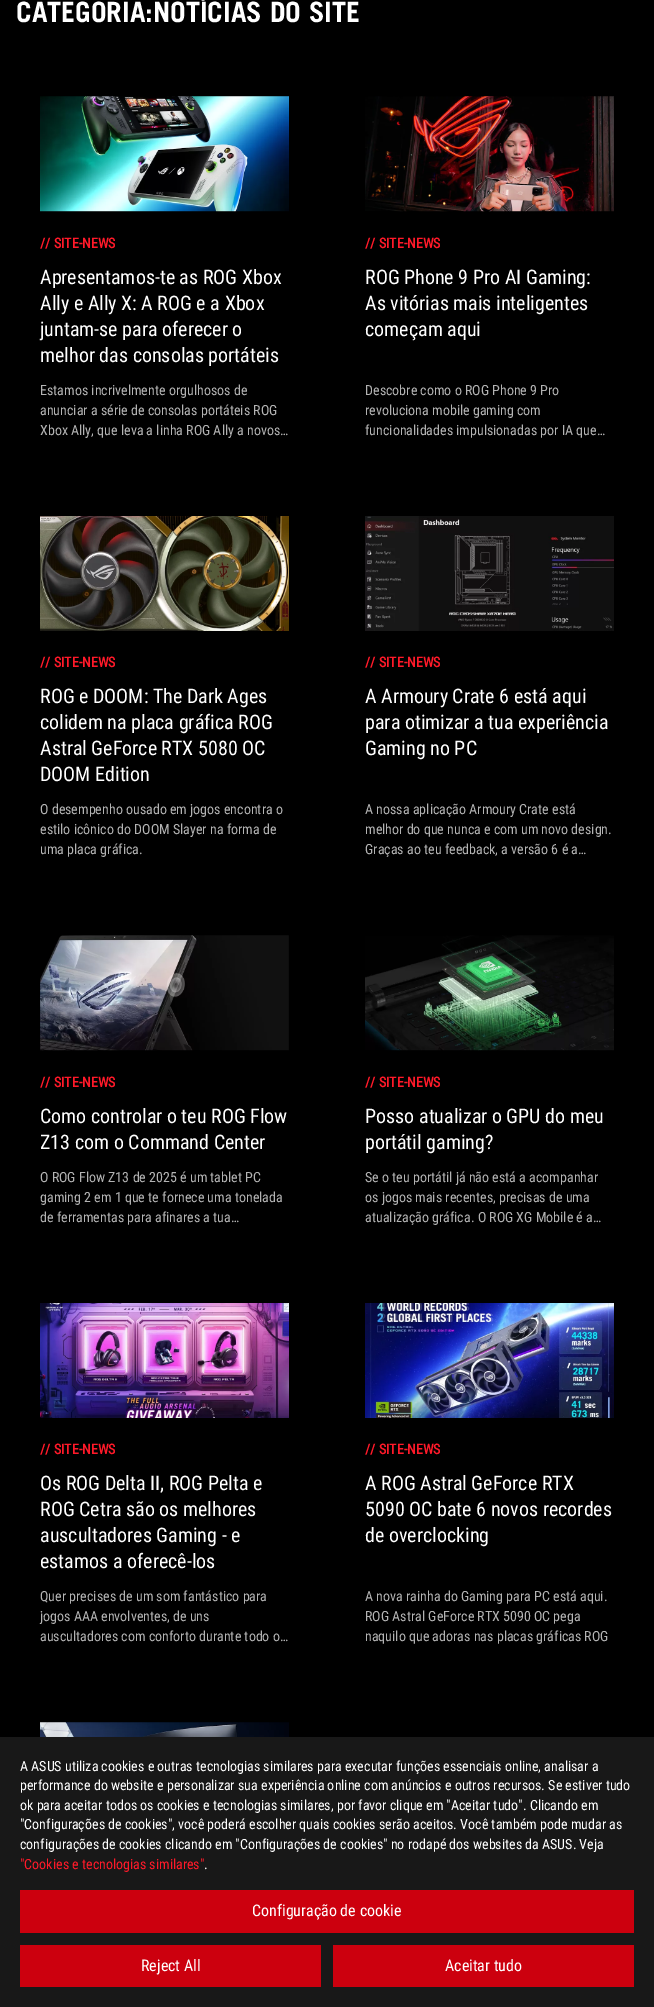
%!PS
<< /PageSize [654 2007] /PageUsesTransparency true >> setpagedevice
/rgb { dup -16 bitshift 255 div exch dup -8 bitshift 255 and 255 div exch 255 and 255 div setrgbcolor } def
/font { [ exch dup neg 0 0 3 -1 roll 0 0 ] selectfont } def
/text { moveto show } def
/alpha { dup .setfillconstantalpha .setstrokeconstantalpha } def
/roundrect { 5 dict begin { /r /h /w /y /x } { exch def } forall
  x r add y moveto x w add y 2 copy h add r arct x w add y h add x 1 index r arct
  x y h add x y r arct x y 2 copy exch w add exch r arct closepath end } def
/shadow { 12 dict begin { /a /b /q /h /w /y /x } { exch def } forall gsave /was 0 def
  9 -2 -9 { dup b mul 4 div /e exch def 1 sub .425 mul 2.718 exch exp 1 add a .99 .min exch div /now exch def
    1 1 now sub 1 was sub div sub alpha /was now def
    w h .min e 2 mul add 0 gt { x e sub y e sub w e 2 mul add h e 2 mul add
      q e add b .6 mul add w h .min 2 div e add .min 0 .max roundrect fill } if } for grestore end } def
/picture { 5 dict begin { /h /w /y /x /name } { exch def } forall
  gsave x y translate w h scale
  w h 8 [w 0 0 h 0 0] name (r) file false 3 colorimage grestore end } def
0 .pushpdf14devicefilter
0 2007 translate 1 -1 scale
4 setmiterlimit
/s1 { /TradeGothic-Bold 28 font 16#FFFFFF rgb } def
/s2 { /RobotoCondensed-Bold 14 font 16#FF1929 rgb } def
/s3 { /RobotoCondensed-Regular 20 font 16#FFFFFF rgb } def
/s4 { /RobotoCondensed-Regular 14 font 16#B3B3B3 rgb } def
/s5 { /RobotoCondensed-Regular 14 font 16#FFFFFF rgb } def
/s6 { /RobotoCondensed-Regular 14 font 16#FF1929 rgb } def
/s7 { /RobotoCondensed-Regular 16 font 16#FFFFFF rgb } def
16#000000 rgb
0 0 654 2007 rectfill
s1
(CATEGORIA:NOTÍCIAS DO SITE) 16 22 text
(pic1.raw) 40 96 249 116 picture
s2
(// SITE-NEWS) 40 248 text
s3
(Apresentamos-te as ROG Xbox) 40 284 text
(Ally e Ally X: A ROG e a Xbox) 40 310 text
(juntam-se para oferecer o) 40 336 text
(melhor das consolas portáteis) 40 362 text
s4
(Estamos incrivelmente orgulhosos de) 40 395 text
(anunciar a série de consolas portáteis ROG) 40 415 text
(Xbox Ally, que leva a linha ROG Ally a novos…) 40 435 text
(pic2.raw) 365 96 249 116 picture
s2
(// SITE-NEWS) 365 248 text
s3
(ROG Phone 9 Pro AI Gaming:) 365 284 text
(As vitórias mais inteligentes) 365 310 text
(começam aqui) 365 336 text
s4
(Descobre como o ROG Phone 9 Pro) 365 395 text
(revoluciona mobile gaming com) 365 415 text
(funcionalidades impulsionadas por IA que…) 365 435 text
(pic3.raw) 40 516 249 115 picture
s2
(// SITE-NEWS) 40 667 text
s3
(ROG e DOOM: The Dark Ages) 40 703 text
(colidem na placa gráfica ROG) 40 729 text
(Astral GeForce RTX 5080 OC) 40 755 text
(DOOM Edition) 40 781 text
s4
(O desempenho ousado em jogos encontra o) 40 814 text
(estilo icônico do DOOM Slayer na forma de) 40 834 text
(uma placa gráfica.) 40 854 text
(pic4.raw) 365 516 249 115 picture
s2
(// SITE-NEWS) 365 667 text
s3
(A Armoury Crate 6 está aqui) 365 703 text
(para otimizar a tua experiência) 365 729 text
(Gaming no PC) 365 755 text
s4
(A nossa aplicação Armoury Crate está) 365 814 text
(melhor do que nunca e com um novo design.) 365 834 text
(Graças ao teu feedback, a versão 6 é a…) 365 854 text
(pic5.raw) 40 935 249 116 picture
s2
(// SITE-NEWS) 40 1087 text
s3
(Como controlar o teu ROG Flow) 40 1123 text
(Z13 com o Command Center) 40 1149 text
s4
(O ROG Flow Z13 de 2025 é um tablet PC) 40 1182 text
(gaming 2 em 1 que te fornece uma tonelada) 40 1202 text
(de ferramentas para afinares a tua…) 40 1222 text
(pic6.raw) 365 935 249 116 picture
s2
(// SITE-NEWS) 365 1087 text
s3
(Posso atualizar o GPU do meu) 365 1123 text
(portátil gaming?) 365 1149 text
s4
(Se o teu portátil já não está a acompanhar) 365 1182 text
(os jogos mais recentes, precisas de uma) 365 1202 text
(atualização gráfica. O ROG XG Mobile é a…) 365 1222 text
(pic7.raw) 40 1303 249 115 picture
s2
(// SITE-NEWS) 40 1454 text
s3
(Os ROG Delta II, ROG Pelta e) 40 1490 text
(ROG Cetra são os melhores) 40 1516 text
(auscultadores Gaming - e) 40 1542 text
(estamos a oferecê-los) 40 1568 text
s4
(Quer precises de um som fantástico para) 40 1601 text
(jogos AAA envolventes, de uns) 40 1621 text
(auscultadores com conforto durante todo o…) 40 1641 text
(pic8.raw) 365 1303 249 115 picture
s2
(// SITE-NEWS) 365 1454 text
s3
(A ROG Astral GeForce RTX) 365 1490 text
(5090 OC bate 6 novos recordes) 365 1516 text
(de overclocking) 365 1542 text
s4
(A nova rainha do Gaming para PC está aqui.) 365 1601 text
(ROG Astral GeForce RTX 5090 OC pega) 365 1621 text
(naquilo que adoras nas placas gráficas ROG) 365 1641 text
(pic9.raw) 40 1722 249 15 picture
16#000000 rgb
1 1735 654 270 0 6 0.1 shadow
16#181818 rgb
0 1737 654 270 rectfill
s5
(A ASUS utiliza cookies e outras tecnologias similares para executar funções essenciais online, analisar a) 20 1771 text
(performance do website e personalizar sua experiência online com anúncios e outros recursos. Se estiver tudo) 20 1790 text
(ok para aceitar todos os cookies e tecnologias similares, por favor clique em "Aceitar tudo". Clicando em) 20 1810 text
("Configurações de cookies", você poderá escolher quais cookies serão aceitos. Você também pode mudar as) 20 1829 text
(configurações de cookies clicando em "Configurações de cookies" no rodapé dos websites da ASUS. Veja) 20 1849 text
s6
("Cookies e tecnologias similares") 20 1869 text
s5
(.) 204 1869 text
16#CC000E rgb
20 1890 614 43 rectfill
s7
(Configuração de cookie) 252 1916 text
16#CC000E rgb
20 1945 301 42 rectfill
s7
(Reject All) 141 1971 text
16#CC000E rgb
333 1945 301 42 rectfill
s7
(Aceitar tudo) 445 1971 text
.poppdf14devicefilter showpage
